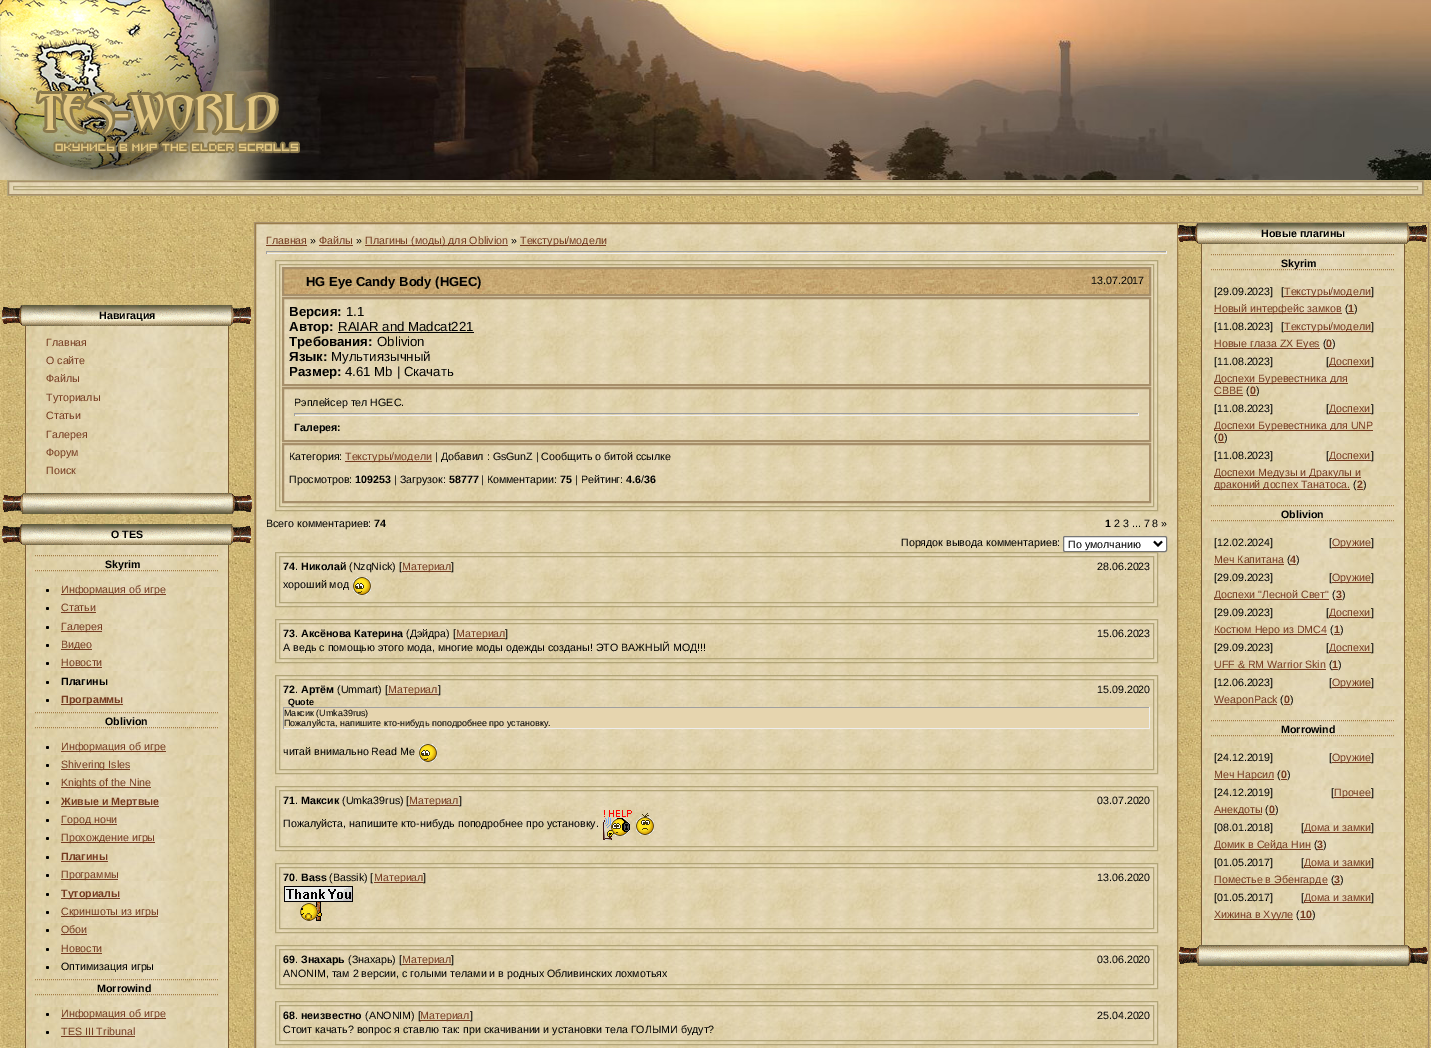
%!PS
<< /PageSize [1431 1048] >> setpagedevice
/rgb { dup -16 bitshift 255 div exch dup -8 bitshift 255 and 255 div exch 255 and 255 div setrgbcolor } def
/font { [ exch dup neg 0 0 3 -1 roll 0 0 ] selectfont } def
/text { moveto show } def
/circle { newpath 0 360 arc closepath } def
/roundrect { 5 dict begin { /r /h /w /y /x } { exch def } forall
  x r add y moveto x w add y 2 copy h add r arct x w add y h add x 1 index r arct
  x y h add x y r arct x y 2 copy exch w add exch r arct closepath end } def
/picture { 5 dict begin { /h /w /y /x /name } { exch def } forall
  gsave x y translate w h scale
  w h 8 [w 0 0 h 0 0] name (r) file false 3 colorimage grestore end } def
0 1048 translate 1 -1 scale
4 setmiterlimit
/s1 { /LiberationSans-Bold 10.65 font 16#000000 rgb } def
/s2 { /LiberationSans-Regular 10.65 font 16#753B21 rgb } def
/s3 { /LiberationSans-Bold 10.65 font 16#753B21 rgb } def
/s4 { /LiberationSans-Regular 10.65 font 16#000000 rgb } def
/s5 { /LiberationSans-Bold 13 font 16#000000 rgb } def
/s6 { /LiberationSans-Bold 13.25 font 16#000000 rgb } def
/s7 { /LiberationSans-Regular 13.25 font 16#000000 rgb } def
/s8 { /LiberationSans-Bold 9 font 16#000000 rgb } def
/s9 { /LiberationSans-Regular 9 font 16#000000 rgb } def
16#FFFFFF rgb
0 0 1431 1048 rectfill
(pic1.raw) 0 180 1431 16 picture
(pic2.raw) 209 0 1222 180 picture
(pic3.raw) 0 0 300 180 picture
16#B2A578 rgb
7.5 180.5 1416 15 rectstroke
(pic4.raw) 9 182 1413 12 picture
16#A78F6A rgb
8.5 181.5 1414 13 rectstroke
(pic5.raw) 14 187 1403 2 picture
16#B2A578 rgb
13.5 186.5 1404 3 rectstroke
(pic6.raw) 0 196 1431 852 picture
(pic7.raw) 2 305 249 21 picture
s1
(Навигация) 99 319 text
(pic8.raw) 25 326 204 167 picture
s2
(Главная) 46 346 text
(О сайте) 46 364 text
(Файлы) 46 382 text
(Туториалы) 46 401 text
(Статьи) 46 419 text
(Галерея) 46 438 text
(Форум) 46 456 text
(Поиск) 46 474 text
(pic9.raw) 3 493 249 21 picture
(pic10.raw) 2 524 249 21 picture
s1
(О TES) 111 538 text
(pic11.raw) 25 545 204 503 picture
16#A67F48 rgb
[1 1] 0 setdash
35 555.5 moveto 219 555.5 lineto stroke
35 570.5 moveto 219 570.5 lineto stroke
s1
(Skyrim) 105 568 text
47.5 590.5 1.5 circle fill
16#753B21 rgb
61 594 105 1 rectfill
s2
(Информация об игре) 61 593 text
16#000000 rgb
47.5 608.5 1.5 circle fill
s2
(Статьи) 61 611 text
61 612 35 1 rectfill
16#000000 rgb
47.5 627.5 1.5 circle fill
16#753B21 rgb
61 631 41 1 rectfill
(Галерея) 61 630 text
16#000000 rgb
47.5 645.5 1.5 circle fill
16#753B21 rgb
61 649 31 1 rectfill
(Видео) 61 648 text
16#000000 rgb
47.5 663.5 1.5 circle fill
s2
(Новости) 61 666 text
61 667 41 1 rectfill
16#000000 rgb
47.5 682.5 1.5 circle fill
s1
(Плагины) 61 685 text
47.5 700.5 1.5 circle fill
16#753B21 rgb
61 704 62 1 rectfill
(Программы) 61 703 text
16#A67F48 rgb
35 712.5 moveto 219 712.5 lineto stroke
35 727.5 moveto 219 727.5 lineto stroke
s1
(Oblivion) 105 725 text
47.5 747.5 1.5 circle fill
16#753B21 rgb
61 751 105 1 rectfill
s2
(Информация об игре) 61 750 text
16#000000 rgb
47.5 765.5 1.5 circle fill
16#753B21 rgb
61 769 69 1 rectfill
(Shivering Isles) 61 768 text
16#000000 rgb
47.5 783.5 1.5 circle fill
16#753B21 rgb
61 787 90 1 rectfill
(Knights of the Nine) 61 786 text
16#000000 rgb
47.5 802.5 1.5 circle fill
16#753B21 rgb
61 806 98 1 rectfill
s3
(Живые и Мертвые) 61 805 text
16#000000 rgb
47.5 820.5 1.5 circle fill
16#753B21 rgb
61 824 56 1 rectfill
s2
(Город ночи) 61 823 text
16#000000 rgb
47.5 838.5 1.5 circle fill
16#753B21 rgb
61 842 94 1 rectfill
(Прохождение игры) 61 841 text
16#000000 rgb
47.5 857.5 1.5 circle fill
s3
(Плагины) 61 860 text
61 861 47 1 rectfill
16#000000 rgb
47.5 875.5 1.5 circle fill
16#753B21 rgb
61 879 57 1 rectfill
s2
(Программы) 61 878 text
16#000000 rgb
47.5 894.5 1.5 circle fill
16#753B21 rgb
61 898 59 1 rectfill
s3
(Туториалы) 61 897 text
16#000000 rgb
47.5 912.5 1.5 circle fill
16#753B21 rgb
61 916 97 1 rectfill
s2
(Скриншоты из игры) 61 915 text
16#000000 rgb
47.5 930.5 1.5 circle fill
s2
(Обои) 61 933 text
61 934 26 1 rectfill
16#000000 rgb
47.5 949.5 1.5 circle fill
s2
(Новости) 61 952 text
61 953 41 1 rectfill
16#000000 rgb
47.5 967.5 1.5 circle fill
(Оптимизация игры) 61 970 text
16#A67F48 rgb
35 979.5 moveto 219 979.5 lineto stroke
35 994.5 moveto 219 994.5 lineto stroke
s1
(Morrowind) 97 992 text
47.5 1014.5 1.5 circle fill
16#753B21 rgb
61 1018 105 1 rectfill
s2
(Информация об игре) 61 1017 text
16#000000 rgb
47.5 1032.5 1.5 circle fill
s2
(TES III Tribunal) 61 1035 text
61 1036 74 1 rectfill
16#A78F6A rgb
[] 0 setdash
254.5 222.5 1174 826 rectstroke
(pic12.raw) 256 224 921 824 picture
16#9A7C4B rgb
255.5 223.5 922 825 rectstroke
s2
(Главная) 266 244 text
266 245 41 1 rectfill
s4
(») 310 244 text
s2
(Файлы) 319 244 text
319 245 34 1 rectfill
s4
(») 356 244 text
16#753B21 rgb
365 245 143 1 rectfill
(Плагины \(моды\) для Oblivion) 365 244 text
s4
(») 511 244 text
16#753B21 rgb
520 245 86 1 rectfill
(Текстуры/модели) 520 244 text
16#9F9F9F rgb
266 251 901 1 rectfill
16#EEEEEE rgb
1166 251 1 3 rectfill
266 253 901 1 rectfill
16#9F9F9F rgb
266 251 1 3 rectfill
(pic13.raw) 276 261 881 249 picture
16#B2A578 rgb
275.5 260.5 882 250 rectstroke
(pic14.raw) 280 265 873 241 picture
279.5 264.5 874 242 rectstroke
(pic15.raw) 284 269 865 25 picture
16#A78F6A rgb
2 setlinewidth
283 268 867 27 rectstroke
s5
(HG Eye Candy Body \(HGEC\)) 306 286 text
s4
(13.07.2017) 1091 284 text
16#A78F6A rgb
283 298 867 87 rectstroke
s6
(Версия:) 289 316 text
s7
(1.1) 346 316 text
s6
(Автор:) 289 331 text
s7
(RAIAR and Madcat221) 338 331 text
338 332 136 1 rectfill
s6
(Требования:) 289 346 text
s7
(Oblivion) 377 346 text
s6
(Язык:) 289 361 text
s7
(Мультиязычный) 331 361 text
s6
(Размер:) 289 376 text
s7
(4.61 Mb | Скачать) 345 376 text
16#A78F6A rgb
283 388 867 53 rectstroke
s4
(Рэплейсер тел HGEC.) 294 406 text
16#9F9F9F rgb
294 413 845 1 rectfill
16#EEEEEE rgb
1138 413 1 3 rectfill
294 415 845 1 rectfill
16#9F9F9F rgb
294 413 1 3 rectfill
s1
(Галерея:) 294 431 text
16#A78F6A rgb
283 444 867 58 rectstroke
s4
(Категория:) 289 460 text
16#753B21 rgb
345 461 87 1 rectfill
(Текстуры/модели) 345 460 text
s4
(| Добавил : GsGunZ | Сообщить о битой ссылке) 435 460 text
(Просмотров:) 289 483 text
s1
(109253) 355 483 text
s4
(| Загрузок:) 394 483 text
s1
(58777) 449 483 text
s4
(| Комментарии:) 481 483 text
s1
(75) 560 483 text
s4
(| Рейтинг:) 575 483 text
s1
(4.6 36) 626 483 text
s4
(/) 641 483 text
(Всего комментариев:) 266 527 text
s1
(74) 374 527 text
(1) 1105 527 text
s4
(2 3 ... 7 8 ») 1114 527 text
(Порядок вывода комментариев:) 901 546 text
16#FFFFFF rgb
1063.5 536.5 103 15 1.5 roundrect gsave fill grestore
16#767676 rgb
1 setlinewidth
stroke
16#000000 rgb
2 setlinewidth
1154 541.5 moveto 1158 545.5 lineto 1162 541.5 lineto stroke
(По умолчанию) 1068 548 text
(pic16.raw) 276 553 881 53 picture
16#B2A578 rgb
1 setlinewidth
275.5 552.5 882 54 rectstroke
(pic17.raw) 280 557 873 45 picture
279.5 556.5 874 46 rectstroke
s1
(74) 283 570 text
s4
(.) 295 570 text
s1
(Николай) 301 570 text
s4
(\(NzqNick\) [) 349 570 text
16#753B21 rgb
402 571 49 1 rectfill
(Материал) 402 570 text
s4
(]) 451 570 text
(28.06.2023) 1097 570 text
(хороший мод) 283 588 text
(pic18.raw) 353 577 18 18 picture
(pic19.raw) 276 620 881 42 picture
16#B2A578 rgb
275.5 619.5 882 43 rectstroke
(pic20.raw) 280 624 873 34 picture
279.5 623.5 874 35 rectstroke
s1
(73) 283 637 text
s4
(.) 295 637 text
s1
(Аксёнова Катерина) 301 637 text
s4
(\(Дэйдра\) [) 406 637 text
16#753B21 rgb
456 638 49 1 rectfill
(Материал) 456 637 text
s4
(]) 505 637 text
(15.06.2023) 1097 637 text
(А ведь с помощью этого мода, многие моды одежды созданы! ЭТО ВАЖНЫЙ МОД!!!) 283 651 text
(pic21.raw) 276 676 881 97 picture
16#B2A578 rgb
275.5 675.5 882 98 rectstroke
(pic22.raw) 280 680 873 89 picture
279.5 679.5 874 90 rectstroke
s1
(72) 283 693 text
s4
(.) 295 693 text
s1
(Артём) 301 693 text
s4
(\(Ummart\) [) 337 693 text
16#753B21 rgb
388 694 50 1 rectfill
(Материал) 388 693 text
s4
(]) 438 693 text
(15.09.2020) 1097 693 text
s8
(Quote) 288 705 text
16#E6D5AF rgb
284 708 865 20 rectfill
16#9F9F9F rgb
283 707 867 1 rectfill
16#EEEEEE rgb
1149 707 1 22 rectfill
283 728 867 1 rectfill
16#9F9F9F rgb
283 707 1 22 rectfill
s9
(Максик \(Umka39rus\)) 284 716 text
(Пожалуйста, напишите кто-нибудь поподробнее про установку.) 284 726 text
s4
(читай внимально Read Me) 283 755 text
(pic23.raw) 419 744 18 18 picture
(pic24.raw) 276 787 881 63 picture
16#B2A578 rgb
275.5 786.5 882 64 rectstroke
(pic25.raw) 280 791 873 55 picture
279.5 790.5 874 56 rectstroke
s1
(71) 283 804 text
s4
(.) 295 804 text
s1
(Максик) 301 804 text
s4
(\(Umka39rus\) [) 342 804 text
16#753B21 rgb
409 805 50 1 rectfill
(Материал) 409 804 text
s4
(]) 459 804 text
(03.07.2020) 1097 804 text
(Пожалуйста, напишите кто-нибудь поподробнее про установку.) 283 827 text
(pic26.raw) 603 810 29 30 picture
(pic27.raw) 636 813 18 22 picture
(pic28.raw) 276 864 881 68 picture
16#B2A578 rgb
275.5 863.5 882 69 rectstroke
(pic29.raw) 280 868 873 60 picture
279.5 867.5 874 61 rectstroke
s1
(70) 283 881 text
s4
(.) 295 881 text
s1
(Bass) 301 881 text
s4
(\(Bassik\) [) 329 881 text
16#753B21 rgb
374 882 49 1 rectfill
(Материал) 374 881 text
s4
(]) 423 881 text
(13.06.2020) 1097 881 text
(pic30.raw) 284 886 69 35 picture
(pic19.raw) 276 946 881 42 picture
16#B2A578 rgb
275.5 945.5 882 43 rectstroke
(pic20.raw) 280 950 873 34 picture
279.5 949.5 874 35 rectstroke
s1
(69) 283 963 text
s4
(.) 295 963 text
s1
(Знахарь) 301 963 text
s4
(\(Знахарь\) [) 348 963 text
16#753B21 rgb
402 964 49 1 rectfill
(Материал) 402 963 text
s4
(]) 451 963 text
(03.06.2020) 1097 963 text
(ANONIM, там 2 версии, с голыми телами и в родных Обливинских лохмотьях) 283 977 text
(pic19.raw) 276 1002 881 42 picture
16#B2A578 rgb
275.5 1001.5 882 43 rectstroke
(pic20.raw) 280 1006 873 34 picture
279.5 1005.5 874 35 rectstroke
s1
(68) 283 1019 text
s4
(.) 295 1019 text
s1
(неизвестно) 301 1019 text
s4
(\(ANONIM\) [) 365 1019 text
16#753B21 rgb
420 1020 50 1 rectfill
(Материал) 420 1019 text
s4
(]) 470 1019 text
(25.04.2020) 1097 1019 text
(Стоит качать? вопрос я ставлю так: при скачивании и установки тела ГОЛЫМИ будут?) 283 1033 text
(pic31.raw) 1178 223 249 21 picture
s1
(Новые плагины) 1261 237 text
(pic32.raw) 1201 244 204 701 picture
16#A67F48 rgb
[1 1] 0 setdash
1211 254.5 moveto 1395 254.5 lineto stroke
1211 269.5 moveto 1395 269.5 lineto stroke
s1
(Skyrim) 1281 267 text
s4
([29.09.2023]) 1214 295 text
([) 1281 295 text
16#753B21 rgb
1284 296 87 1 rectfill
(Текстуры/модели) 1284 295 text
s4
(]) 1371 295 text
16#753B21 rgb
1214 313 128 1 rectfill
(Новый интерфейс замков) 1214 312 text
s4
(\() 1345 312 text
16#753B21 rgb
1348 313 6 1 rectfill
s3
(1) 1348 312 text
s4
(\)) 1354 312 text
([11.08.2023]) 1214 330 text
([) 1281 330 text
16#753B21 rgb
1284 331 87 1 rectfill
(Текстуры/модели) 1284 330 text
s4
(]) 1371 330 text
16#753B21 rgb
1214 348 106 1 rectfill
(Новые глаза ZX Eyes) 1214 347 text
s4
(\() 1323 347 text
16#753B21 rgb
1326 348 6 1 rectfill
s3
(0) 1326 347 text
s4
(\)) 1332 347 text
([11.08.2023]) 1214 365 text
([) 1326 365 text
16#753B21 rgb
1329 366 42 1 rectfill
(Доспехи) 1329 365 text
s4
(]) 1371 365 text
16#753B21 rgb
1214 383 134 1 rectfill
(Доспехи Буревестника для) 1214 382 text
(СВВЕ) 1214 394 text
1214 395 29 1 rectfill
s4
(\() 1246 394 text
16#753B21 rgb
1250 395 6 1 rectfill
s3
(0) 1250 394 text
s4
(\)) 1256 394 text
([11.08.2023]) 1214 412 text
([) 1326 412 text
16#753B21 rgb
1329 413 42 1 rectfill
(Доспехи) 1329 412 text
s4
(]) 1371 412 text
16#753B21 rgb
1214 430 159 1 rectfill
(Доспехи Буревестника для UNP) 1214 429 text
s4
(\() 1214 441 text
16#753B21 rgb
1218 442 6 1 rectfill
s3
(0) 1218 441 text
s4
(\)) 1224 441 text
([11.08.2023]) 1214 459 text
([) 1326 459 text
16#753B21 rgb
1329 460 42 1 rectfill
(Доспехи) 1329 459 text
s4
(]) 1371 459 text
16#753B21 rgb
1214 477 147 1 rectfill
(Доспехи Медузы и Дракулы и) 1214 476 text
1214 489 136 1 rectfill
(драконий доспех Танатоса.) 1214 488 text
s4
(\() 1353 488 text
16#753B21 rgb
1357 489 6 1 rectfill
s3
(2) 1357 488 text
s4
(\)) 1363 488 text
16#A67F48 rgb
1211 505.5 moveto 1395 505.5 lineto stroke
1211 520.5 moveto 1395 520.5 lineto stroke
s1
(Oblivion) 1281 518 text
s4
([12.02.2024]) 1214 546 text
([) 1329 546 text
16#753B21 rgb
1332 547 39 1 rectfill
(Оружие) 1332 546 text
s4
(]) 1371 546 text
s2
(Меч Капитана) 1214 563 text
1214 564 70 1 rectfill
s4
(\() 1287 563 text
16#753B21 rgb
1290 564 6 1 rectfill
s3
(4) 1290 563 text
s4
(\)) 1296 563 text
([29.09.2023]) 1214 581 text
([) 1329 581 text
16#753B21 rgb
1332 582 39 1 rectfill
(Оружие) 1332 581 text
s4
(]) 1371 581 text
16#753B21 rgb
1214 599 115 1 rectfill
(Доспехи "Лесной Свет") 1214 598 text
s4
(\() 1332 598 text
16#753B21 rgb
1336 599 6 1 rectfill
s3
(3) 1336 598 text
s4
(\)) 1342 598 text
([29.09.2023]) 1214 616 text
([) 1326 616 text
16#753B21 rgb
1329 617 42 1 rectfill
(Доспехи) 1329 616 text
s4
(]) 1371 616 text
16#753B21 rgb
1214 634 113 1 rectfill
(Костюм Неро из DMC4) 1214 633 text
s4
(\() 1330 633 text
16#753B21 rgb
1334 634 6 1 rectfill
s3
(1) 1334 633 text
s4
(\)) 1340 633 text
([29.09.2023]) 1214 651 text
([) 1326 651 text
16#753B21 rgb
1329 652 42 1 rectfill
(Доспехи) 1329 651 text
s4
(]) 1371 651 text
s2
(UFF & RM Warrior Skin) 1214 668 text
1214 669 112 1 rectfill
s4
(\() 1329 668 text
16#753B21 rgb
1332 669 6 1 rectfill
s3
(1) 1332 668 text
s4
(\)) 1338 668 text
([12.06.2023]) 1214 686 text
([) 1329 686 text
16#753B21 rgb
1332 687 39 1 rectfill
(Оружие) 1332 686 text
s4
(]) 1371 686 text
16#753B21 rgb
1214 704 63 1 rectfill
(WeaponPack) 1214 703 text
s4
(\() 1280 703 text
16#753B21 rgb
1284 704 6 1 rectfill
s3
(0) 1284 703 text
s4
(\)) 1290 703 text
16#A67F48 rgb
1211 720.5 moveto 1395 720.5 lineto stroke
1211 735.5 moveto 1395 735.5 lineto stroke
s1
(Morrowind) 1281 733 text
s4
([24.12.2019]) 1214 761 text
([) 1329 761 text
16#753B21 rgb
1332 762 39 1 rectfill
(Оружие) 1332 761 text
s4
(]) 1371 761 text
16#753B21 rgb
1214 779 60 1 rectfill
(Меч Нарсил) 1214 778 text
s4
(\() 1277 778 text
16#753B21 rgb
1281 779 6 1 rectfill
s3
(0) 1281 778 text
s4
(\)) 1287 778 text
([24.12.2019]) 1214 796 text
([) 1331 796 text
16#753B21 rgb
1334 797 37 1 rectfill
(Прочее) 1334 796 text
s4
(]) 1371 796 text
16#753B21 rgb
1214 814 48 1 rectfill
(Анекдоты) 1214 813 text
s4
(\() 1265 813 text
16#753B21 rgb
1269 814 6 1 rectfill
s3
(0) 1269 813 text
s4
(\)) 1275 813 text
([08.01.2018]) 1214 831 text
([) 1301 831 text
16#753B21 rgb
1304 832 67 1 rectfill
(Дома и замки) 1304 831 text
s4
(]) 1371 831 text
16#753B21 rgb
1214 849 97 1 rectfill
(Домик в Сейда Нин) 1214 848 text
s4
(\() 1314 848 text
16#753B21 rgb
1317 849 6 1 rectfill
s3
(3) 1317 848 text
s4
(\)) 1323 848 text
([01.05.2017]) 1214 866 text
([) 1301 866 text
16#753B21 rgb
1304 867 67 1 rectfill
(Дома и замки) 1304 866 text
s4
(]) 1371 866 text
16#753B21 rgb
1214 884 114 1 rectfill
(Поместье в Эбенгарде) 1214 883 text
s4
(\() 1331 883 text
16#753B21 rgb
1334 884 6 1 rectfill
s3
(3) 1334 883 text
s4
(\)) 1340 883 text
([01.05.2017]) 1214 901 text
([) 1301 901 text
16#753B21 rgb
1304 902 67 1 rectfill
(Дома и замки) 1304 901 text
s4
(]) 1371 901 text
16#753B21 rgb
1214 919 79 1 rectfill
(Хижина в Хууле) 1214 918 text
s4
(\() 1296 918 text
16#753B21 rgb
1300 919 12 1 rectfill
s3
(10) 1300 918 text
s4
(\)) 1312 918 text
(pic33.raw) 1179 945 249 21 picture
showpage
